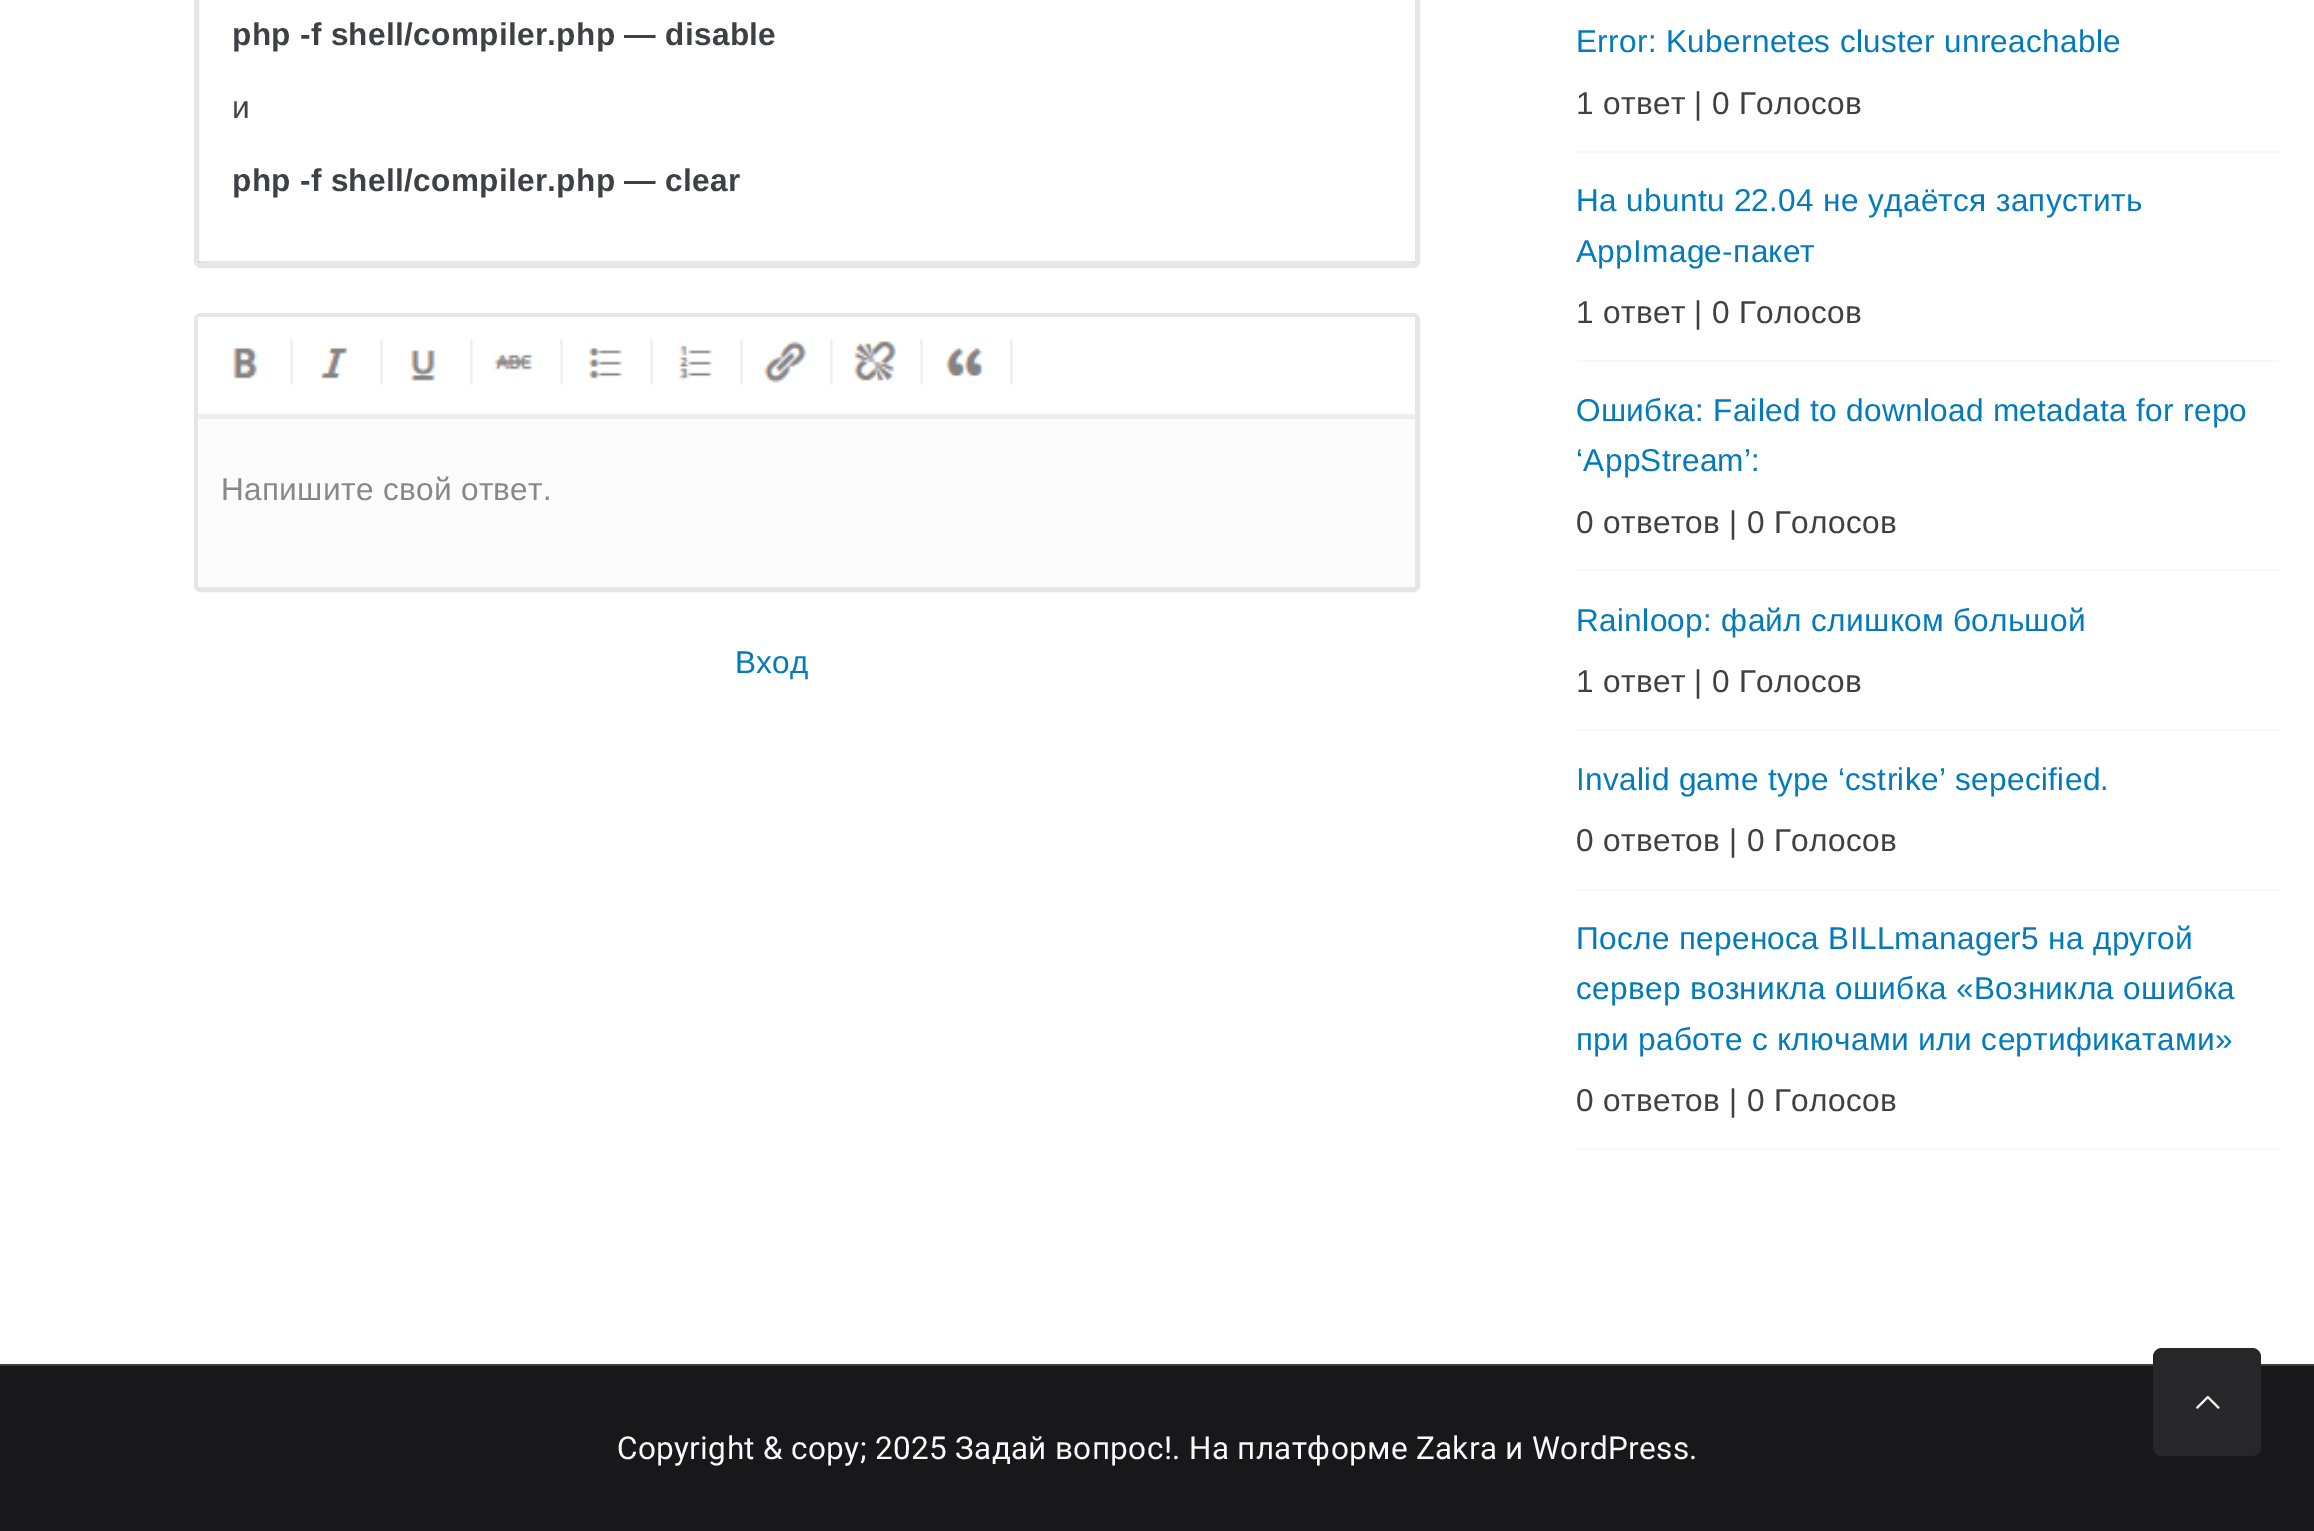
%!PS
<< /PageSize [2314 1531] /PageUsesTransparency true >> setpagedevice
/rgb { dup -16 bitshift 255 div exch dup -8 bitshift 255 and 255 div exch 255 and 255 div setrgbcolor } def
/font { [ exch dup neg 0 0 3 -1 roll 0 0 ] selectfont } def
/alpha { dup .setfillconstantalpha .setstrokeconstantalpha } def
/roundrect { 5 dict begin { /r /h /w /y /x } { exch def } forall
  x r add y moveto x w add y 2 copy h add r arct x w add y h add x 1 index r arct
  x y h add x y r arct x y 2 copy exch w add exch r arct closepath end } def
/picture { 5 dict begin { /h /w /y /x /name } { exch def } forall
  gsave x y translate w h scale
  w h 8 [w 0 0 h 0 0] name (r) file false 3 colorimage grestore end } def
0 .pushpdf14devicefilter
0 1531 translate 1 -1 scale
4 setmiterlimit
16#FFFFFF rgb
0 0 2314 1531 rectfill
16#E6E6E6 rgb
5 setlinewidth
196.5 -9.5 1221 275 4.5 roundrect stroke
/LiberationSans-Bold 31.5 font
16#3F3F46 rgb
232 45 moveto 0.35 0 (php -f shell/compiler.php — disable) ashow
/LiberationSans-Regular 31.5 font
232 118 moveto 0.35 0 (и) ashow
/LiberationSans-Bold 31.5 font
232 191 moveto 0.35 0 (php -f shell/compiler.php — clear) ashow
0.1 alpha
16#000000 rgb
198 261 1217 2 rectfill
1 alpha
16#E6E6E6 rgb
196.5 315.5 1221 274 4.5 roundrect stroke
16#FCFCFC rgb
198 419 1217 168 rectfill
16#FFFFFF rgb
198 317 1217 97 rectfill
(pic1.raw) 233 339 780 46 picture
16#EEEEEE rgb
198 414 1217 5 rectfill
/LiberationSans-Regular 31.5 font
16#888888 rgb
221 500 moveto 0.35 0 (Напишите свой ответ.) ashow
16#027ABB rgb
735 673 moveto 0.35 0 (Вход) ashow
16#F8F8F8 rgb
1577 151 702 2 rectfill
16#027ABB rgb
1576 52 moveto 0.35 0 (Error: Kubernetes cluster unreachable) ashow
16#3F3F46 rgb
1576 114 moveto 0.35 0 (1 ответ | 0 Голосов) ashow
16#F8F8F8 rgb
1577 360 702 2 rectfill
16#027ABB rgb
1576 211 moveto 0.35 0 (На ubuntu 22.04 не удаётся запустить) ashow
1576 262 moveto 0.35 0 (AppImage-пакет) ashow
16#3F3F46 rgb
1576 323 moveto 0.35 0 (1 ответ | 0 Голосов) ashow
16#F8F8F8 rgb
1577 569 702 2 rectfill
16#027ABB rgb
1576 421 moveto 0.35 0 (Ошибка: Failed to download metadata for repo) ashow
1576 471 moveto 0.35 0 (‘AppStream’:) ashow
16#3F3F46 rgb
1576 533 moveto 0.35 0 (0 ответов | 0 Голосов) ashow
16#F8F8F8 rgb
1577 729 702 2 rectfill
16#027ABB rgb
1576 631 moveto 0.35 0 (Rainloop: файл слишком большой) ashow
16#3F3F46 rgb
1576 692 moveto 0.35 0 (1 ответ | 0 Голосов) ashow
16#F8F8F8 rgb
1577 889 702 2 rectfill
16#027ABB rgb
1576 790 moveto 0.35 0 (Invalid game type ‘cstrike’ sepecified.) ashow
16#3F3F46 rgb
1576 851 moveto 0.35 0 (0 ответов | 0 Голосов) ashow
16#F8F8F8 rgb
1577 1148 702 2 rectfill
16#027ABB rgb
1576 949 moveto 0.35 0 (После переноса BILLmanager5 на другой) ashow
1576 999 moveto 0.35 0 (сервер возникла ошибка «Возникла ошибка) ashow
1576 1050 moveto 0.35 0 (при работе с ключами или сертификатами») ashow
16#3F3F46 rgb
1576 1111 moveto 0.35 0 (0 ответов | 0 Голосов) ashow
16#18181B rgb
0 1366 2314 165 rectfill
16#3F3F46 rgb
0 1364 2314 2 rectfill
/Roboto-Regular 31.5 font
16#FAFAFA rgb
617 1459 moveto 0.35 0 (Copyright & copy; 2025 Задай вопрос!. На платформе Zakra и WordPress.) ashow
16#27272A rgb
2153 1348 108 108 9 roundrect fill
(pic2.raw) 2196 1395 24 14 picture
.poppdf14devicefilter showpage
